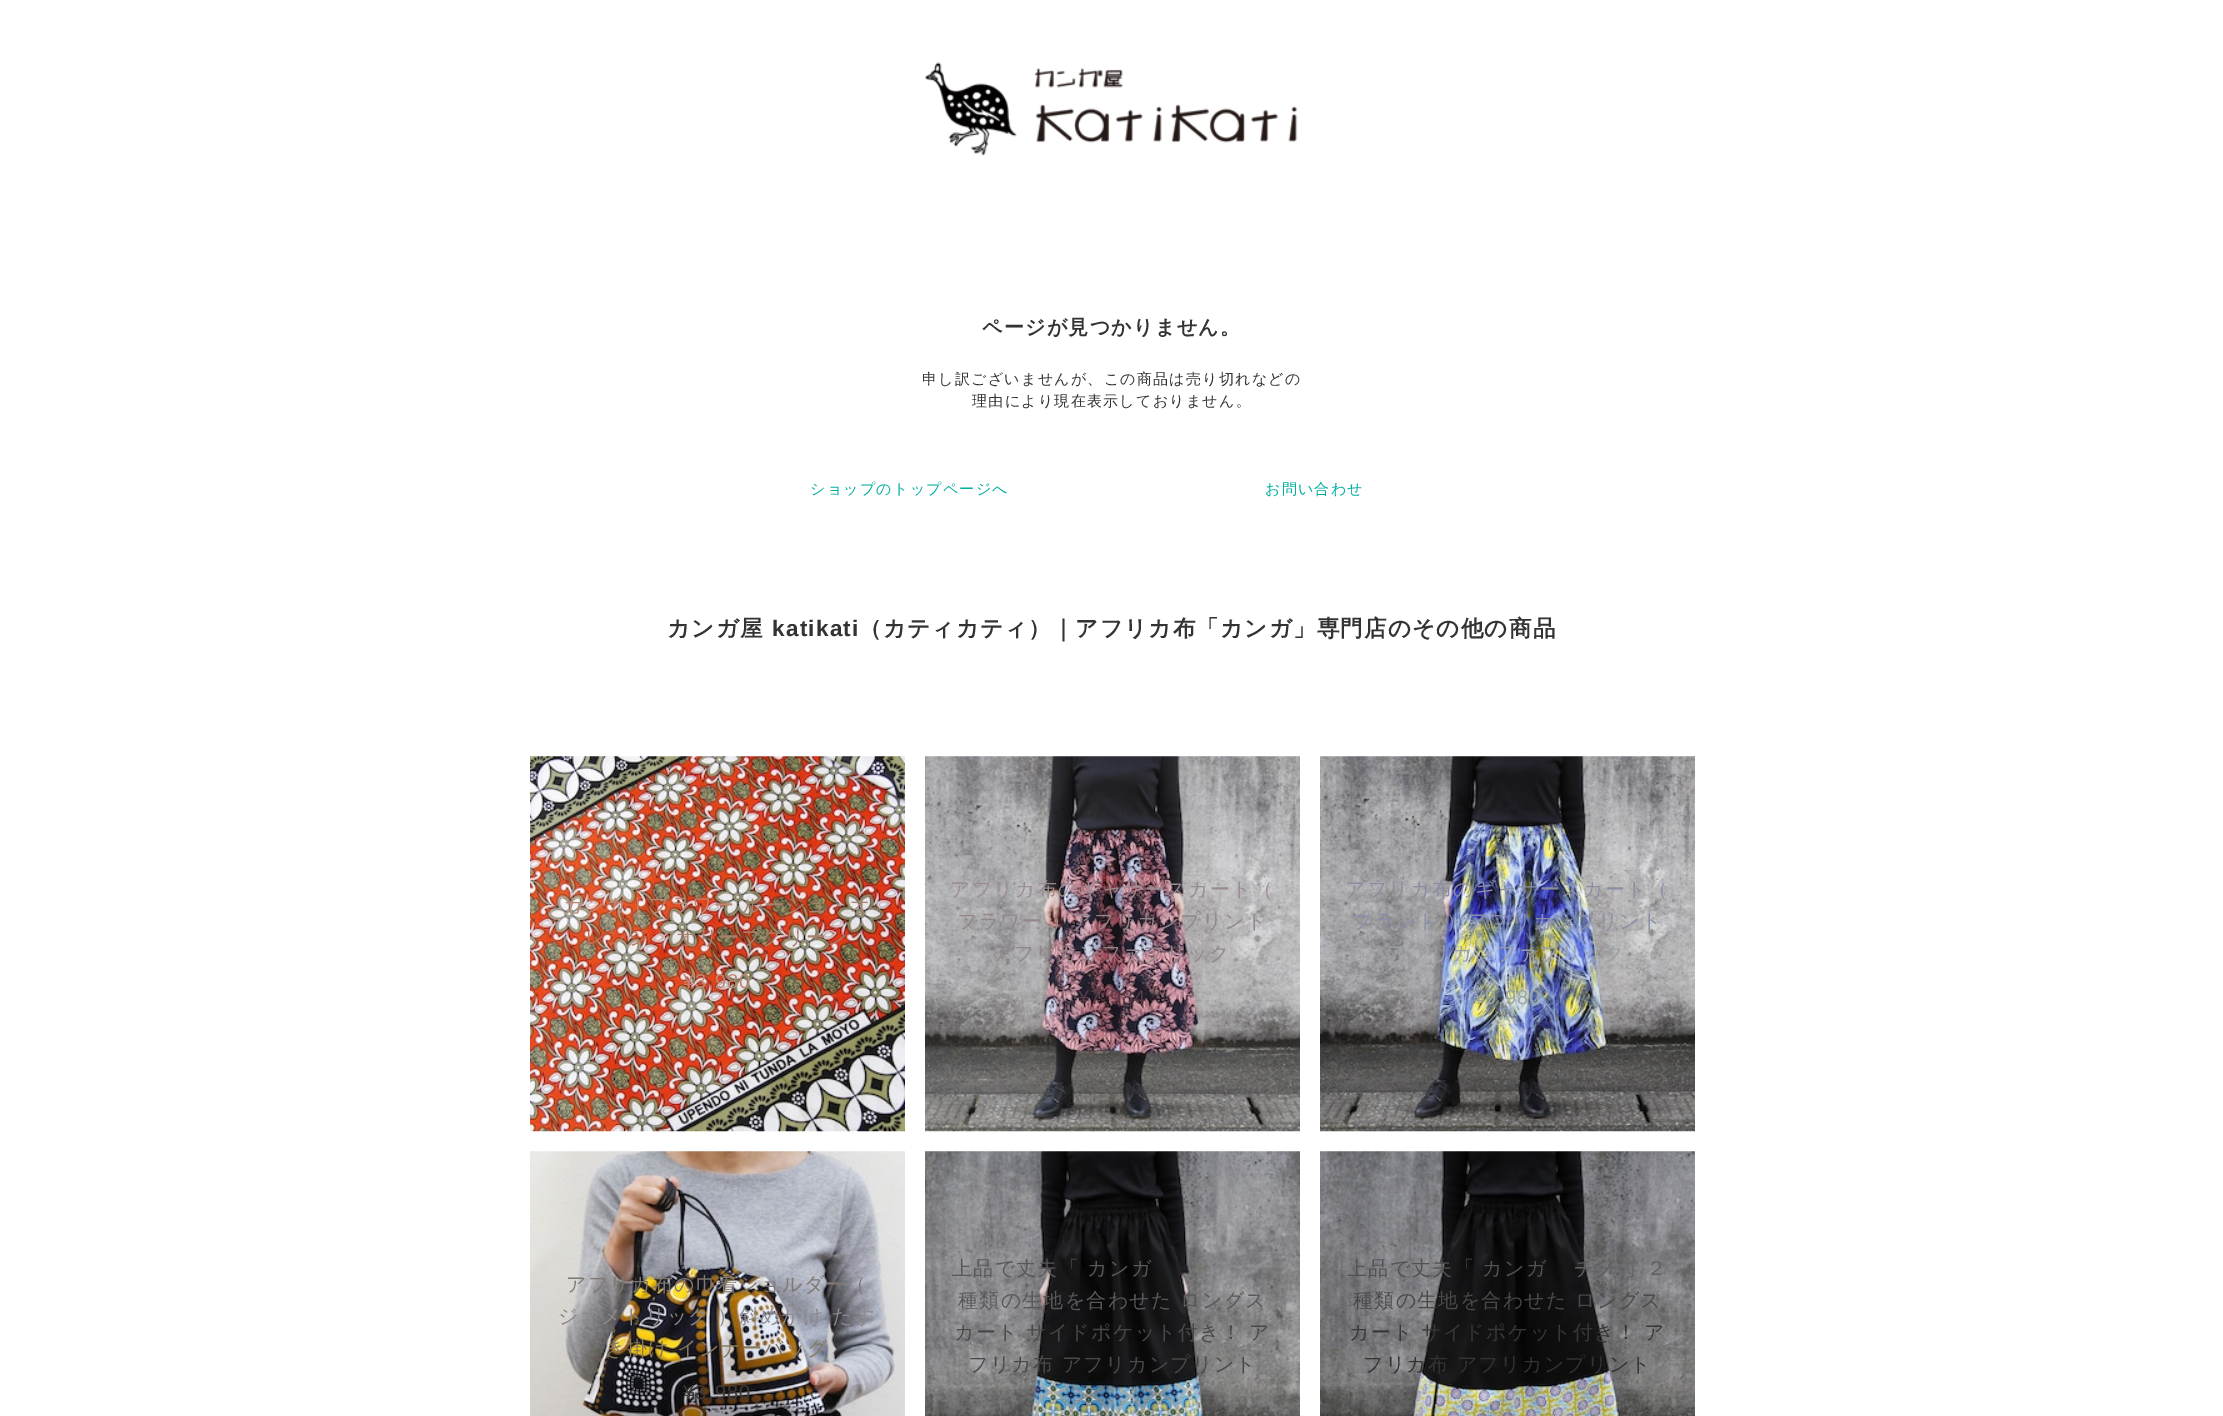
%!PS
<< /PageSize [2223 1416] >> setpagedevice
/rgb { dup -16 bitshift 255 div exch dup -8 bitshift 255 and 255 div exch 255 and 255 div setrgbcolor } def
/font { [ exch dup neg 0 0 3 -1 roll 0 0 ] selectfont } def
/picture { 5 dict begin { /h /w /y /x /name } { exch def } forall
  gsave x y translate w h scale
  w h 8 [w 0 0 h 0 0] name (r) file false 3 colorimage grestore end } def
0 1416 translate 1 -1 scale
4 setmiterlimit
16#FFFFFF rgb
0 0 2223 1416 rectfill
(pic1.raw) 925 62 373 94 picture
/WenQuanYiZenHei-Bold 20 font
16#333333 rgb
982 334 moveto 1.25 0 (ページが見つかりません。) ashow
/WenQuanYiZenHei-Medium 15 font
922 384 moveto 1.25 0 (申し訳ございませんが、この商品は売り切れなどの) ashow
972 406 moveto 1.25 0 (理由により現在表示しておりません。) ashow
16#00AE9F rgb
810 494 moveto 1.25 0 (ショップのトップページへ) ashow
1265 494 moveto 1.25 0 (お問い合わせ) ashow
/WenQuanYiZenHei-Bold 22.5 font
16#333333 rgb
667 636 moveto 1.25 0 (カンガ屋) ashow
/LiberationSans-Bold 22.5 font
772 636 moveto 1.25 0 (katikati) ashow
/WenQuanYiZenHei-Bold 22.5 font
859 636 moveto 1.25 0 (（カティカティ）｜アフリカ布「カンガ」専門店のその他の商品) ashow
(pic2.raw) 530 756 375 376 picture
/WenQuanYiZenHei-Medium 20 font
16#BF8673 rgb
563 912 moveto 1.25 0 (カンガ｜フラワー) ashow
16#A6826F rgb
742 912 moveto 1.25 0 (ルージュ・オ) ashow
16#C27359 rgb
585 944 moveto 1.25 0 (レンジ) ashow
/LiberationSans-Regular 20 font
16#CFB3B0 rgb
657 944 moveto 1.25 0 (×) ashow
/WenQuanYiZenHei-Medium 20 font
16#AC7F6F rgb
676 944 moveto 1.25 0 (オリーブグリーン) ashow
/LiberationSans-Regular 20 font
16#BF8673 rgb
683 988 moveto 1.25 0 (¥3,980) ashow
(pic3.raw) 925 756 375 376 picture
/WenQuanYiZenHei-Medium 20 font
16#9B8C92 rgb
950 896 moveto 1.25 0 (アフリカ布のギャザースカート（) ashow
16#93868B rgb
957 928 moveto 1.25 0 (フラワー ）アフリカンプリント) ashow
992 960 moveto 1.25 0 (アフリカンファブリック) ashow
/LiberationSans-Regular 20 font
16#583B48 rgb
1078 1004 moveto 1.25 0 (¥7,984) ashow
(pic4.raw) 1320 756 375 376 picture
/WenQuanYiZenHei-Medium 20 font
16#8B8EA1 rgb
1345 896 moveto 1.25 0 (アフリカ布のギャザースカート（) ashow
16#8A8FA8 rgb
1352 928 moveto 1.25 0 (プラント ）アフリカンプリント) ashow
16#999FA7 rgb
1387 960 moveto 1.25 0 (アフリカンファブリック) ashow
/LiberationSans-Regular 20 font
16#9BA6A1 rgb
1473 1004 moveto 1.25 0 (¥9,980) ashow
(pic5.raw) 530 1151 375 265 picture
/WenQuanYiZenHei-Medium 20 font
16#7E7871 rgb
566 1291 moveto 1.25 0 (アフリカ布の巾着ショルダー（) ashow
16#8C898C rgb
558 1323 moveto 1.25 0 (ジオメトリック ）斜めがけ たす) ashow
16#887B5B rgb
605 1355 moveto 1.25 0 (き掛け インナーバッグ) ashow
/LiberationSans-Regular 20 font
16#403936 rgb
683 1399 moveto 1.25 0 (¥3,980) ashow
(pic6.raw) 925 1151 375 265 picture
/WenQuanYiZenHei-Medium 20 font
16#58575A rgb
952 1275 moveto 1.25 0 (上品で丈夫「 カンガ) ashow
958 1307 moveto 1.25 0 (種類の生地を合わせた ロングス) ashow
16#49494A rgb
954 1339 moveto 1.25 0 (カート サイドポケット付き！ ア) ashow
968 1371 moveto 1.25 0 (フリカ布 アフリカンプリント) ashow
(pic7.raw) 1320 1151 375 265 picture
16#525154 rgb
1347 1275 moveto 1.25 0 (上品で丈夫「 カンガ) ashow
16#5F5F62 rgb
1574 1275 moveto 1.25 0 (チノ 」２) ashow
16#49494A rgb
1353 1307 moveto 1.25 0 (種類の生地を合わせた ロングス) ashow
16#383839 rgb
1349 1339 moveto 1.25 0 (カート サイドポケット付き！ ア) ashow
16#333333 rgb
1363 1371 moveto 1.25 0 (フリカ布 アフリカンプリント) ashow
showpage
